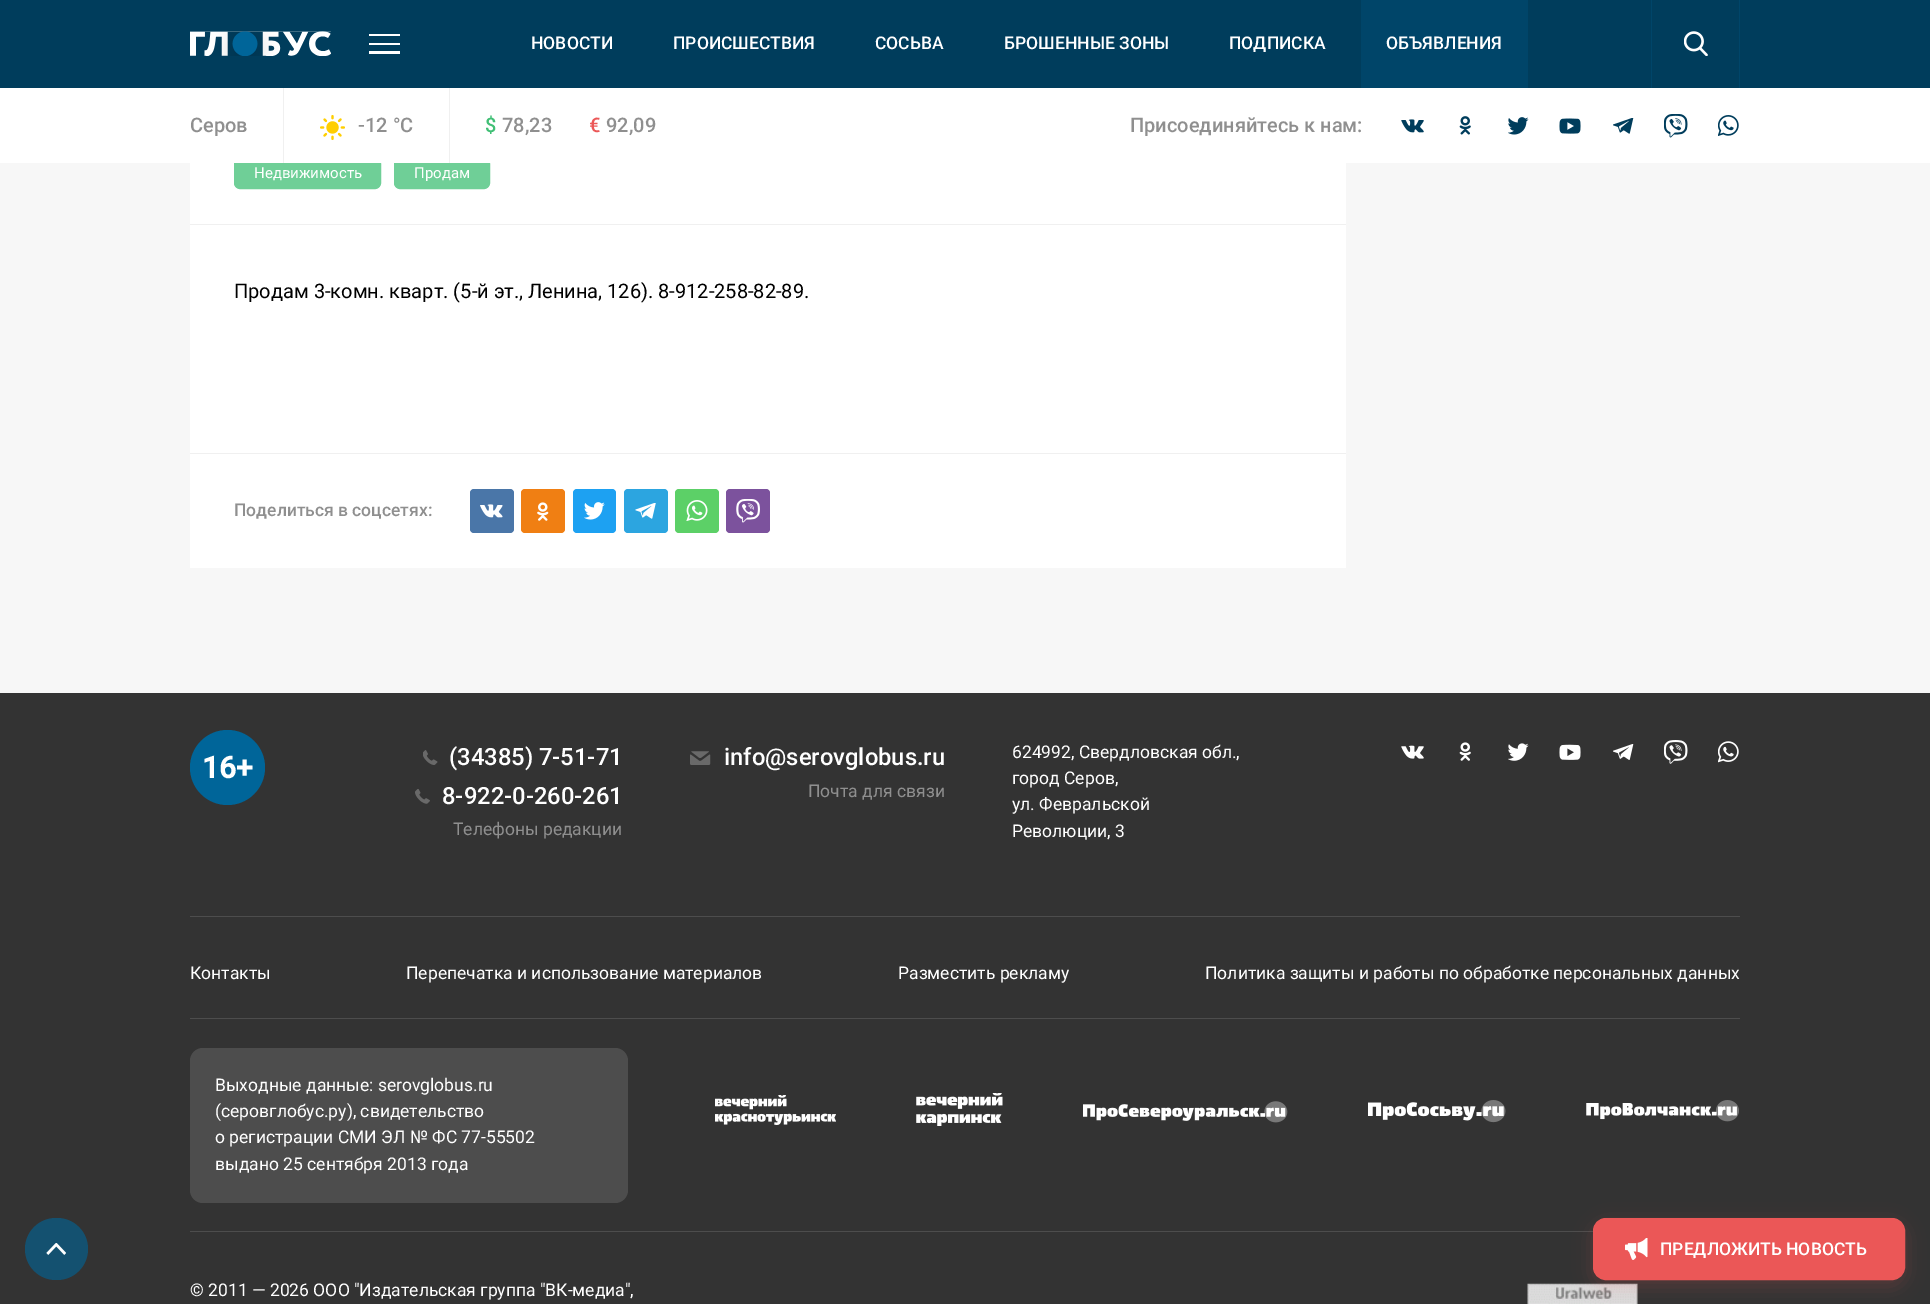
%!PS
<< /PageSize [1930 1304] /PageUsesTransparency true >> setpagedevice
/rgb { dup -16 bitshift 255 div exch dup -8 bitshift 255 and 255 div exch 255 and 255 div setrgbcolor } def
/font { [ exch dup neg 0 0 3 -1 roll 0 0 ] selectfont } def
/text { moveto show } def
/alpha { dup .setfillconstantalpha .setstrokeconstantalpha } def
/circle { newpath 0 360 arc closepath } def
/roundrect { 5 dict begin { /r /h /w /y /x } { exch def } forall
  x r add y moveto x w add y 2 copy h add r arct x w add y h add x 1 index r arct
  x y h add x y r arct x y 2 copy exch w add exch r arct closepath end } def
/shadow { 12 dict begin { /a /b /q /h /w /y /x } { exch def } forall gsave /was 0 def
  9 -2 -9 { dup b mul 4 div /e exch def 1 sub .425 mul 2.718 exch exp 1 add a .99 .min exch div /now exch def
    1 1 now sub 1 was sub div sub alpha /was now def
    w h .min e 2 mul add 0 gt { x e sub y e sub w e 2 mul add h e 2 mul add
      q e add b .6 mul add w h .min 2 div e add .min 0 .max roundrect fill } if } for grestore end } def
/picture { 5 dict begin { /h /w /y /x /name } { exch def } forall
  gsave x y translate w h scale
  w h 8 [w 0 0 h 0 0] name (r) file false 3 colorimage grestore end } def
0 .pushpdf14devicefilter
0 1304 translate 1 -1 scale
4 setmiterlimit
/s1 { /Roboto-Medium 17.5 font 16#FFFFFF rgb } def
/s2 { /Roboto-Medium 20 font 16#8F8F8F rgb } def
/s3 { /Roboto-Medium 20 font 16#40BF75 rgb } def
/s4 { /Roboto-Medium 20 font 16#EB5757 rgb } def
/s5 { /Roboto-Regular 15 font 16#FFFFFF rgb } def
/s6 { /Roboto-Regular 20 font 16#000000 rgb } def
/s7 { /Roboto-Medium 17.5 font 16#8F8F8F rgb } def
/s8 { /Roboto-Bold 30 font 16#FFFFFF rgb } def
/s9 { /Roboto-Medium 23.75 font 16#FFFFFF rgb } def
/s10 { /Roboto-Regular 17.5 font 16#8F8F8F rgb } def
/s11 { /Roboto-Regular 17.5 font 16#FFFFFF rgb } def
16#F7F7F7 rgb
0 0 1930 1304 rectfill
16#003D5C rgb
0 0 1930 88 rectfill
(pic1.raw) 190 31 141 25 picture
16#FFFFFF rgb
369 34 31 2 rectfill
369 43 31 2 rectfill
369 51 31 3 rectfill
s1
(НОВОСТИ) 531 49 text
(ПРОИСШЕСТВИЯ) 673 49 text
(СОСЬВА) 875 49 text
(БРОШЕННЫЕ ЗОНЫ) 1004 49 text
(ПОДПИСКА) 1229 49 text
16#004569 rgb
1361 0 167 88 rectfill
s1
(ОБЪЯВЛЕНИЯ) 1386 49 text
16#004569 rgb
1651 0 1 88 rectfill
1739 0 1 88 rectfill
(pic2.raw) 1684 31 24 25 picture
16#FFFFFF rgb
190 163 1156 405 rectfill
16#6FCF97 rgb
234.5 158.5 146 30 5.5 roundrect gsave fill grestore
stroke
394.5 158.5 95 30 5.5 roundrect gsave fill grestore
stroke
16#FFFFFF rgb
0 88 1930 75 rectfill
s2
(Серов) 190 132 text
16#F0F0F0 rgb
449 88 1 75 rectfill
283 88 1 75 rectfill
(pic3.raw) 320 115 25 25 picture
s2
(-12 °C) 358 132 text
s3
($) 485 132 text
s2
(78,23) 502 132 text
s4
(€) 589 132 text
s2
(92,09) 606 132 text
(Присоединяйтесь к нам:) 1130 132 text
(pic4.raw) 1401 119 23 14 picture
(pic5.raw) 1459 116 12 19 picture
(pic6.raw) 1508 117 21 18 picture
(pic7.raw) 1559 118 22 16 picture
(pic8.raw) 1613 118 21 16 picture
(pic9.raw) 1664 114 24 24 picture
(pic10.raw) 1718 115 21 21 picture
s5
(Недвижимость) 254 178 text
(Продам) 414 178 text
16#F0F0F0 rgb
190 224 1156 1 rectfill
190 453 1156 1 rectfill
s6
(Продам 3-комн. кварт. \(5-й эт., Ленина, 126\). 8-912-258-82-89.) 234 298 text
s7
(Поделиться в соцсетях:) 234 516 text
16#4A76A8 rgb
470 489 44 44 4 roundrect fill
(pic11.raw) 480 504 23 14 picture
16#F07F13 rgb
521 489 44 44 4 roundrect fill
(pic12.raw) 537 502 12 19 picture
16#1DA1F2 rgb
573 489 43 44 4 roundrect fill
(pic13.raw) 584 502 21 18 picture
16#2CA5E0 rgb
624 489 44 44 4 roundrect fill
(pic14.raw) 635 503 21 16 picture
16#5CD067 rgb
675 489 44 44 4 roundrect fill
(pic15.raw) 686 500 22 21 picture
16#7C529D rgb
726 489 44 44 4 roundrect fill
(pic16.raw) 736 499 24 24 picture
16#333333 rgb
0 693 1930 611 rectfill
16#145170 rgb
25 1218 63 62 31 roundrect fill
(pic17.raw) 46 1243 20 12 picture
16#4D4D4D rgb
190 916 1550 1 rectfill
16#006599 rgb
227.5 767.5 37.5 circle fill
s8
(16+) 202 778 text
(pic18.raw) 423 750 15 15 picture
s9
(\(34385\) 7-51-71) 449 765 text
(pic19.raw) 415 789 15 15 picture
(8-922-0-260-261) 442 804 text
s10
(Телефоны редакции) 453 835 text
(pic20.raw) 690 751 21 14 picture
s9
(info@serovglobus.ru) 724 765 text
s10
(Почта для связи) 808 797 text
s11
(624992, Свердловская обл.,) 1012 758 text
(город Серов,) 1012 784 text
(ул. Февральской) 1012 810 text
(Революции, 3) 1012 837 text
(pic21.raw) 1401 745 23 14 picture
(pic22.raw) 1459 742 12 19 picture
(pic23.raw) 1508 743 21 18 picture
(pic24.raw) 1559 744 22 16 picture
(pic25.raw) 1613 744 21 16 picture
(pic26.raw) 1664 740 24 24 picture
(pic27.raw) 1718 741 21 22 picture
(Контакты) 190 979 text
(Перепечатка и использование материалов) 406 979 text
(Разместить рекламу) 898 979 text
(Политика защиты и работы по обработке персональных данных) 1205 979 text
16#4D4D4D rgb
190 1018 1550 1 rectfill
190 1231 1403 1 rectfill
190 1048 438 155 13 roundrect fill
s11
(Выходные данные: serovglobus.ru) 215 1091 text
(\(серовглобус.ру\), свидетельство) 215 1117 text
(о регистрации СМИ ЭЛ № ФС 77-55502) 215 1143 text
(выдано 25 сентября 2013 года) 215 1170 text
(pic28.raw) 715 1095 121 30 picture
(pic29.raw) 916 1093 87 33 picture
(pic30.raw) 1083 1101 205 22 picture
(pic31.raw) 1368 1100 138 23 picture
(pic32.raw) 1586 1100 153 22 picture
(© 2011 — 2026 ООО "Издательская группа "ВК-медиа",) 190 1296 text
(pic33.raw) 1527 1283 111 21 picture
16#EB5757 rgb
1593 1224 312 62 13 9.5 0.2 shadow
1593.5 1218.5 311 61 12.5 roundrect gsave fill grestore
stroke
(pic34.raw) 1625 1238 23 22 picture
s1
(ПРЕДЛОЖИТЬ НОВОСТЬ) 1660 1255 text
.poppdf14devicefilter showpage
